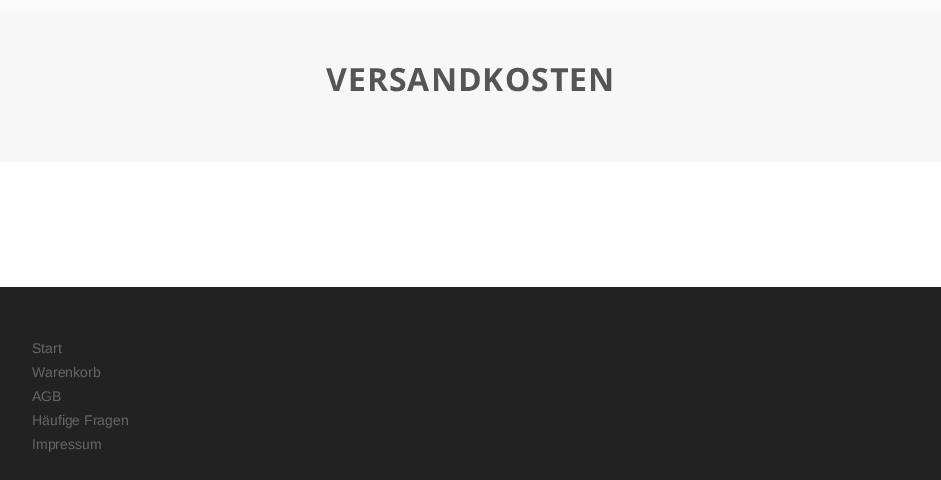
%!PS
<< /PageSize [941 480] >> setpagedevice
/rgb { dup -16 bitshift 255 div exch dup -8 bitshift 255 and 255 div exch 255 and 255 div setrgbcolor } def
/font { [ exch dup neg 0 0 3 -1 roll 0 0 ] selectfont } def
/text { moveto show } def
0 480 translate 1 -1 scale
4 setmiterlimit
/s1 { /LiberationSans-Regular 14 font 16#666666 rgb } def
16#FFFFFF rgb
0 0 941 480 rectfill
16#FAFAFA rgb
0 0 941 12 rectfill
16#F7F7F7 rgb
0 12 941 150 rectfill
/OpenSans-Bold 32 font
16#555555 rgb
326 91 moveto 1 0 (VERSANDKOSTEN) ashow
16#222222 rgb
0 287 941 193 rectfill
s1
(Start) 32 353 text
(Warenkorb) 32 377 text
(AGB) 32 401 text
(Häufige Fragen) 32 425 text
(Impressum) 32 449 text
showpage
